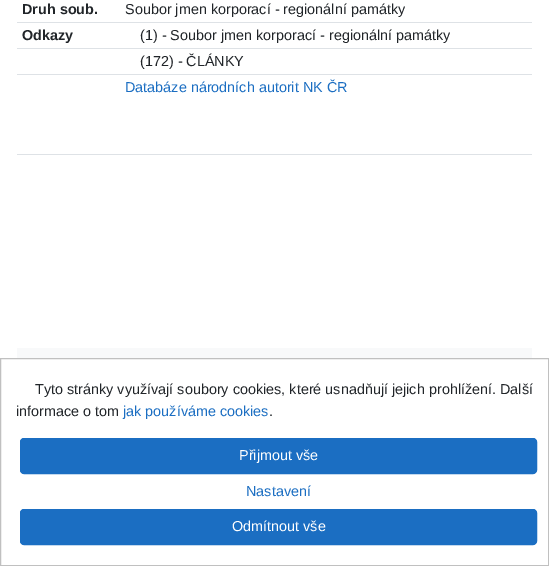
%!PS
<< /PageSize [549 566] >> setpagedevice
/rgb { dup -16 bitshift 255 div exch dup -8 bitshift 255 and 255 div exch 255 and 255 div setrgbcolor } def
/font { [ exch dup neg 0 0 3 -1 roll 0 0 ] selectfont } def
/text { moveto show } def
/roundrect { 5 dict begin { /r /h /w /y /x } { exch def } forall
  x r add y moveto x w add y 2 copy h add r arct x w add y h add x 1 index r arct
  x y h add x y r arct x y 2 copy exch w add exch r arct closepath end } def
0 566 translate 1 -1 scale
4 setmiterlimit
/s1 { /LiberationSans-Bold 14.4 font 16#212529 rgb } def
/s2 { /LiberationSans-Regular 14.4 font 16#212529 rgb } def
/s3 { /LiberationSans-Regular 14.4 font 16#1B6EC2 rgb } def
/s4 { /LiberationSans-Regular 14.4 font 16#FFFFFF rgb } def
16#FFFFFF rgb
0 0 549 566 rectfill
s1
(Druh soub.) 22 14 text
s2
(Soubor jmen korporací - regionální památky) 125 14 text
s1
(Odkazy) 22 40 text
16#DEE2E6 rgb
17 22 515 1 rectfill
s2
(\(1\) - Soubor jmen korporací - regionální památky) 140 40 text
16#DEE2E6 rgb
17 48 515 1 rectfill
s2
(\(172\) - ČLÁNKY) 140 66 text
16#DEE2E6 rgb
17 74 515 1 rectfill
s3
(Databáze národních autorit NK ČR) 125 92 text
16#DEE2E6 rgb
17 154 515 1 rectfill
16#F8F9FA rgb
17 348 515 10 rectfill
16#C0C0C0 rgb
0.5 358.5 548 207 rectstroke
s2
(Tyto stránky využívají soubory cookies, které usnadňují jejich prohlížení. Další) 35 394 text
(informace o tom) 16 416 text
s3
(jak používáme cookies) 123 416 text
s2
(.) 269 416 text
16#1B6EC2 rgb
20.5 438.5 516 35 3.5 roundrect gsave fill grestore
stroke
s4
(Přijmout vše) 239 460 text
s3
(Nastavení) 246 496 text
20.5 509.5 516 35 3.5 roundrect gsave fill grestore
stroke
s4
(Odmítnout vše) 232 531 text
showpage
